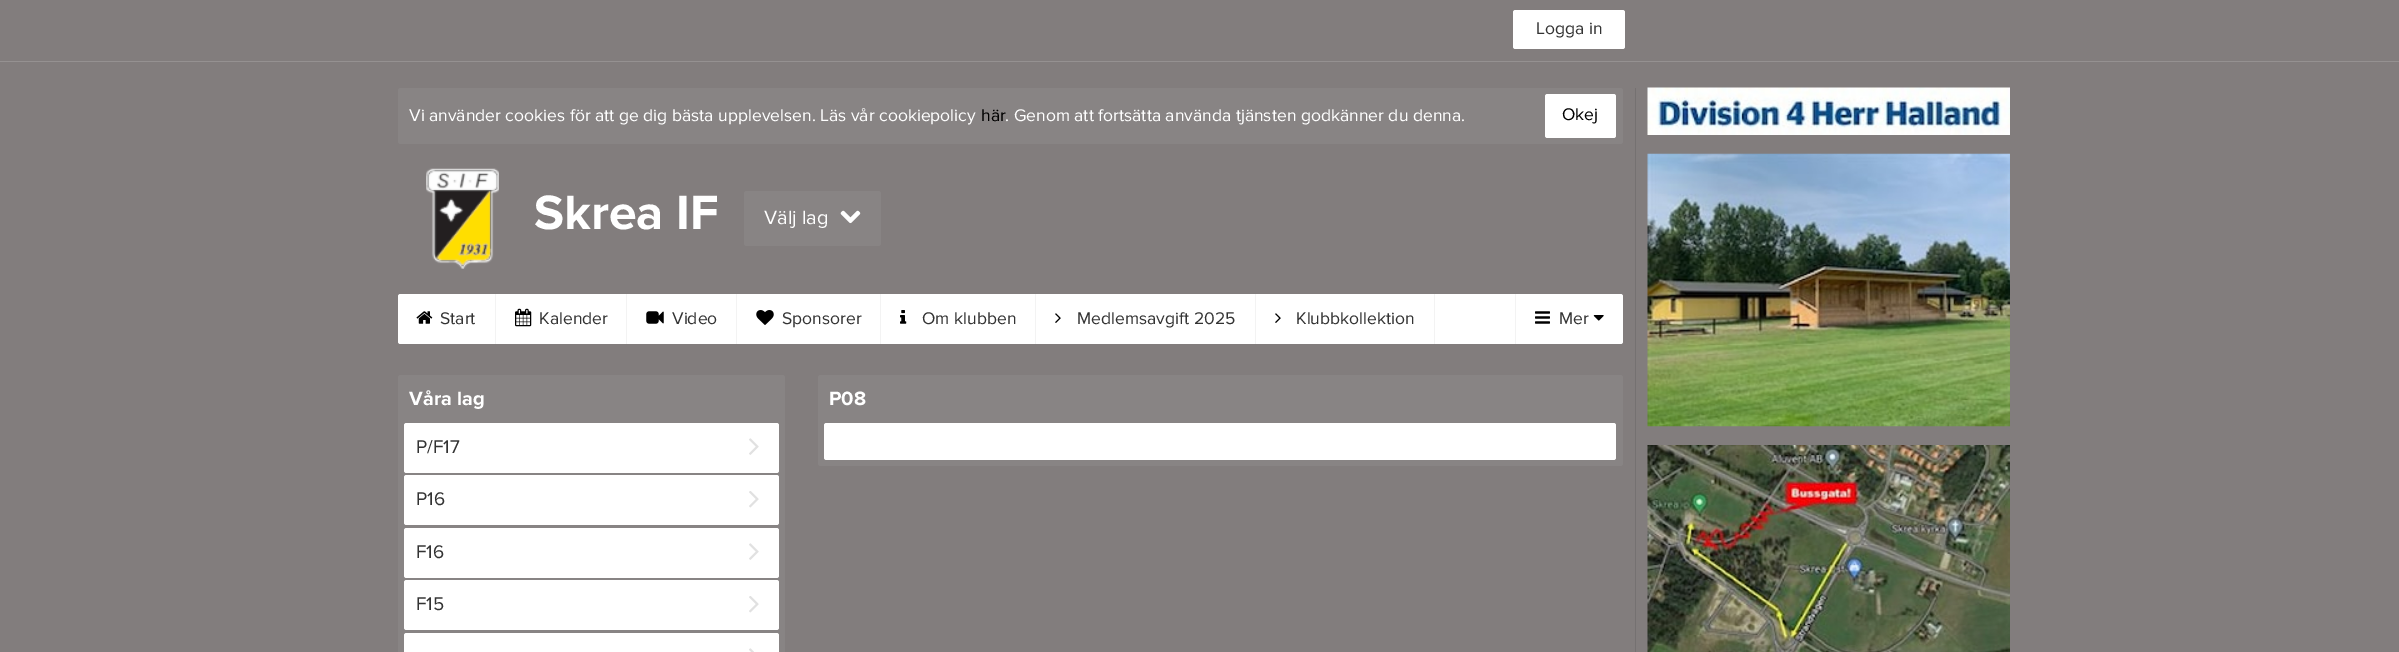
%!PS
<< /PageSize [2399 652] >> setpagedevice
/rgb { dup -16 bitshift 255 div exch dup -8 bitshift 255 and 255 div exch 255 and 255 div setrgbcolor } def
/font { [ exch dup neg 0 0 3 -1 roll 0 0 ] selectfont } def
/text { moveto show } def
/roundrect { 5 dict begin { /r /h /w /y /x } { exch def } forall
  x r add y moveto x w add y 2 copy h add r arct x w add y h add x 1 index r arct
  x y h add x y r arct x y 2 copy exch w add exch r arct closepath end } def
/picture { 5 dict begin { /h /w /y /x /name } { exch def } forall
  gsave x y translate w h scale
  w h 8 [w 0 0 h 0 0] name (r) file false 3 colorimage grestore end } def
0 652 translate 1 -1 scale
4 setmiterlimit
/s1 { /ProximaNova-Regular 17.5 font 16#333333 rgb } def
/s2 { /ProximaNova-Regular 17.5 font 16#FFFFFF rgb } def
/s3 { /ProximaNova-Regular 17.5 font 16#000000 rgb } def
/s4 { /ProximaNova-Bold 50 font 16#FFFFFF rgb } def
/s5 { /ProximaNova-Regular 20 font 16#FFFFFF rgb } def
/s6 { /ProximaNova-Bold 20 font 16#FFFFFF rgb } def
/s7 { /ProximaNova-Regular 19 font 16#333333 rgb } def
16#827D7D rgb
0 0 2399 652 rectfill
16#959191 rgb
0 61 2399 1 rectfill
16#FFFFFF rgb
1513 10 112 39 2.5 roundrect fill
s1
(Logga in) 1536 34 text
16#888484 rgb
398 88 1225 56 2.5 roundrect fill
s2
(Vi använder cookies för att ge dig bästa upplevelsen. Läs vår cookiepolicy) 409 121 text
s3
(här) 981 121 text
s2
(. Genom att fortsätta använda tjänsten godkänner du denna.) 1005 121 text
1545 94 71 44 2.5 roundrect fill
s3
(Okej) 1562 120 text
(pic1.raw) 426 168 73 101 picture
s4
(Skrea IF) 534 229 text
16#888484 rgb
744 191 137 55 2.5 roundrect fill
s5
(Välj lag) 764 224 text
(pic2.raw) 840 210 21 14 picture
398 294 1225 50 2.5 roundrect fill
16#F3F3F3 rgb
495 294 1 50 rectfill
(pic3.raw) 416 311 17 13 picture
s1
(Start) 440 324 text
16#F3F3F3 rgb
626 294 1 50 rectfill
(pic4.raw) 515 308 17 19 picture
s1
(Kalender) 539 324 text
16#F3F3F3 rgb
736 294 1 50 rectfill
(pic5.raw) 646 311 18 13 picture
s1
(Video) 672 324 text
16#F3F3F3 rgb
880 294 1 50 rectfill
(pic6.raw) 756 310 18 15 picture
s1
(Sponsorer) 782 324 text
16#F3F3F3 rgb
1035 294 1 50 rectfill
(pic7.raw) 900 310 7 14 picture
s1
(Om klubben) 922 324 text
16#F3F3F3 rgb
1255 294 1 50 rectfill
(pic8.raw) 1055 313 6 10 picture
s1
(Medlemsavgift 2025) 1077 324 text
16#F3F3F3 rgb
1434 294 1 50 rectfill
(pic8.raw) 1275 313 6 10 picture
s1
(Klubbkollektion) 1296 324 text
16#F3F3F3 rgb
1515 294 1 50 rectfill
(pic9.raw) 1535 311 15 13 picture
s1
(Mer) 1559 324 text
(pic10.raw) 1593 315 11 6 picture
16#888484 rgb
398 375 387 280 2.5 roundrect fill
s6
(Våra lag) 409 405 text
404 423 375 50 2.5 roundrect fill
s7
(P/F17) 416 453 text
(pic11.raw) 749 438 10 17 picture
16#FFFFFF rgb
404 475 375 50 2.5 roundrect fill
s7
(P16) 416 505 text
(pic12.raw) 749 491 10 17 picture
16#FFFFFF rgb
404 528 375 50 2.5 roundrect fill
s7
(F16) 416 558 text
(pic11.raw) 749 543 10 17 picture
16#FFFFFF rgb
404 580 375 50 2.5 roundrect fill
s7
(F15) 416 610 text
(pic12.raw) 749 596 10 17 picture
16#FFFFFF rgb
404 633 375 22 2.5 roundrect fill
(pic13.raw) 749 648 5 4 picture
16#888484 rgb
818 375 805 91 2.5 roundrect fill
s6
(P08) 829 405 text
824 423 792 37 2.5 roundrect fill
16#757171 rgb
1635 88 1 564 rectfill
(pic14.raw) 1647 87 363 48 picture
(pic15.raw) 1647 153 363 274 picture
(pic16.raw) 1647 445 363 207 picture
showpage
